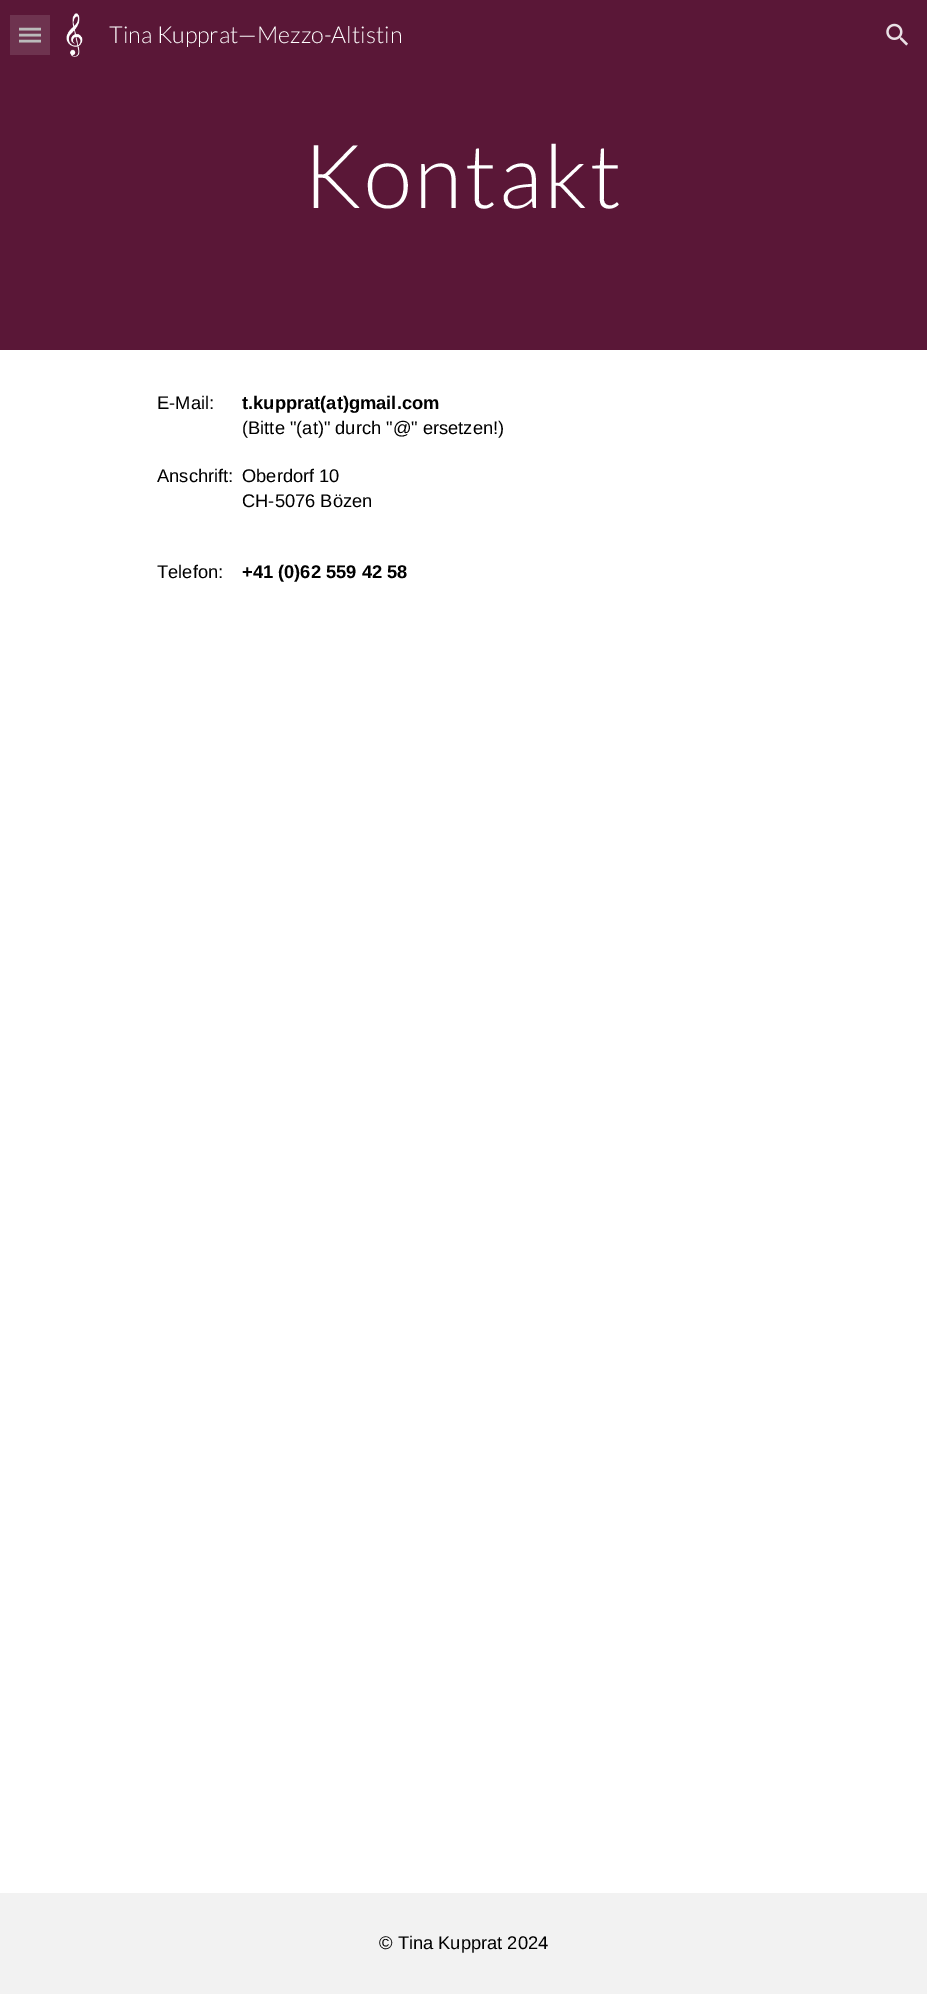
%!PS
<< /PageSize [927 1994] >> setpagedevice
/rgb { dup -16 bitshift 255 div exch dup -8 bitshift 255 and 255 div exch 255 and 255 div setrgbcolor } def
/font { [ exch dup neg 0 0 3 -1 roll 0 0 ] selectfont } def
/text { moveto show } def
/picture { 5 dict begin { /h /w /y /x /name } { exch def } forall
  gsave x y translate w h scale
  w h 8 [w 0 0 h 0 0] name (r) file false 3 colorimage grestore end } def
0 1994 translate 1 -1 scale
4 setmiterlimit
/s1 { /Lato-Light 23.3 font 16#FFFFFF rgb } def
/s2 { /LiberationSans-Regular 18.3 font 16#000000 rgb } def
/s3 { /LiberationSans-Bold 18.3 font 16#000000 rgb } def
16#FFFFFF rgb
0 0 927 1994 rectfill
16#5A1737 rgb
0 0 927 350 rectfill
16#6E334F rgb
10 15 40 40 rectfill
16#BBBBBB rgb
2.5 setlinewidth
19 29 moveto 41 29 lineto 19 35 moveto 41 35 lineto 19 41 moveto 41 41 lineto stroke
(pic1.raw) 66 13 17 44 picture
s1
(Tina Kupprat—Mezzo-Altistin) 109 43 text
(pic2.raw) 886 23 22 23 picture
/Lato-Light 88.5 font
303 208 moveto 2.5 0 (Kontakt) ashow
s2
(E-Mail:) 157 409 text
s3
(t.kupprat\(at\)gmail.com) 242 409 text
s2
(\(Bitte "\(at\)" durch "@" ersetzen!\)) 242 434 text
(Anschrift:) 157 482 text
(Oberdorf 10) 242 482 text
(CH-5076 Bözen) 242 507 text
(Telefon:) 157 578 text
s3
(+41 \(0\)62 559 42 58) 242 578 text
16#F2F2F2 rgb
0 1893 927 101 rectfill
s2
(© Tina Kupprat 2024) 379 1949 text
showpage
